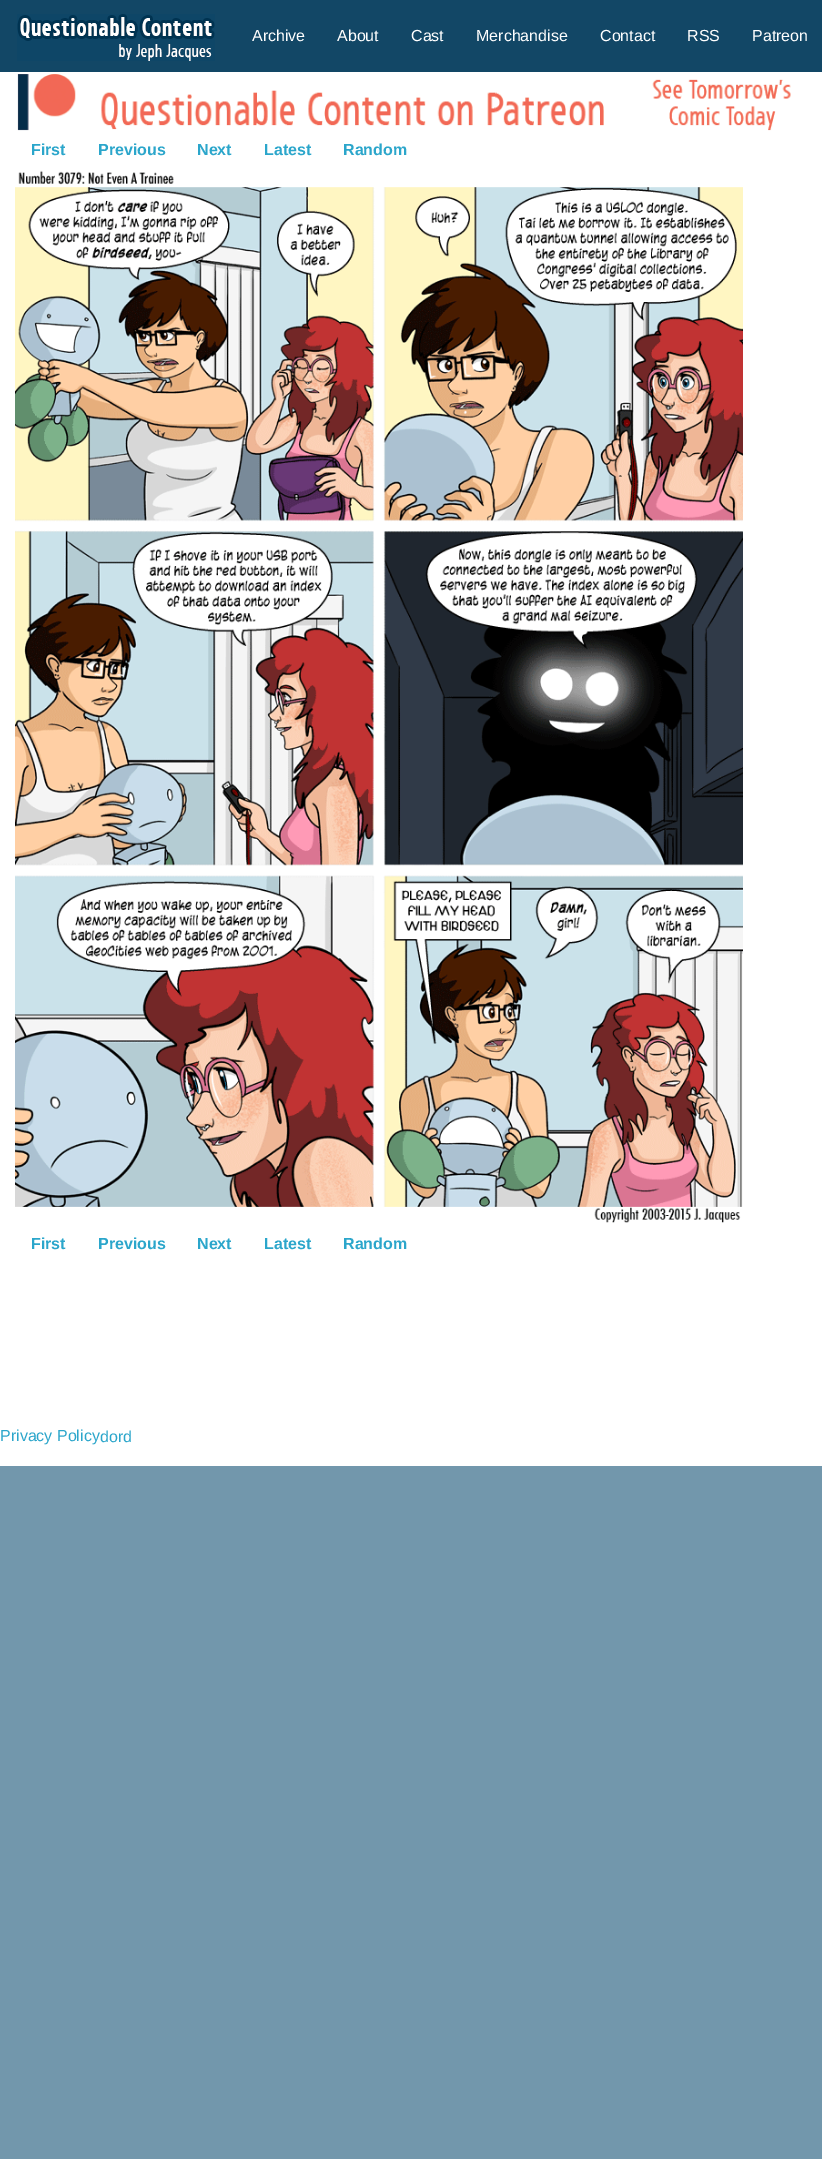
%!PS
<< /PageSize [822 2159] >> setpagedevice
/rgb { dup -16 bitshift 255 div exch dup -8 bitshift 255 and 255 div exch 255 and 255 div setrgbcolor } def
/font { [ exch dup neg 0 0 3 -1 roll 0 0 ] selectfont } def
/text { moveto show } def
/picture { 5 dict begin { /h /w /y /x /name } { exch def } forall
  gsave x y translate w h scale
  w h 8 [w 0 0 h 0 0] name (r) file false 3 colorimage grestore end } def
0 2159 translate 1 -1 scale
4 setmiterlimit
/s1 { /LiberationSans-Regular 16 font 16#FFFFFF rgb } def
/s2 { /LiberationSans-Bold 16 font 16#2BA6CB rgb } def
/s3 { /LiberationSans-Regular 16 font 16#2BA6CB rgb } def
16#7297AC rgb
0 0 822 2159 rectfill
16#124766 rgb
0 0 822 72 rectfill
(pic1.raw) 17 14 198 47 picture
s1
(Archive) 252 41 text
(About) 337 41 text
(Cast) 411 41 text
(Merchandise) 476 41 text
(Contact) 600 41 text
(RSS) 687 41 text
(Patreon) 752 41 text
0 72 822 1394 rectfill
(pic2.raw) 17 74 774 57 picture
s2
(First) 31 155 text
(Previous) 98 155 text
(Next) 197 155 text
(Latest) 264 155 text
(Random) 343 155 text
(pic3.raw) 15 170 728 1053 picture
(First) 31 1249 text
(Previous) 98 1249 text
(Next) 197 1249 text
(Latest) 264 1249 text
(Random) 343 1249 text
s3
(Privacy Policy) 0 1441 text
(dord) 100 1442 text
showpage
